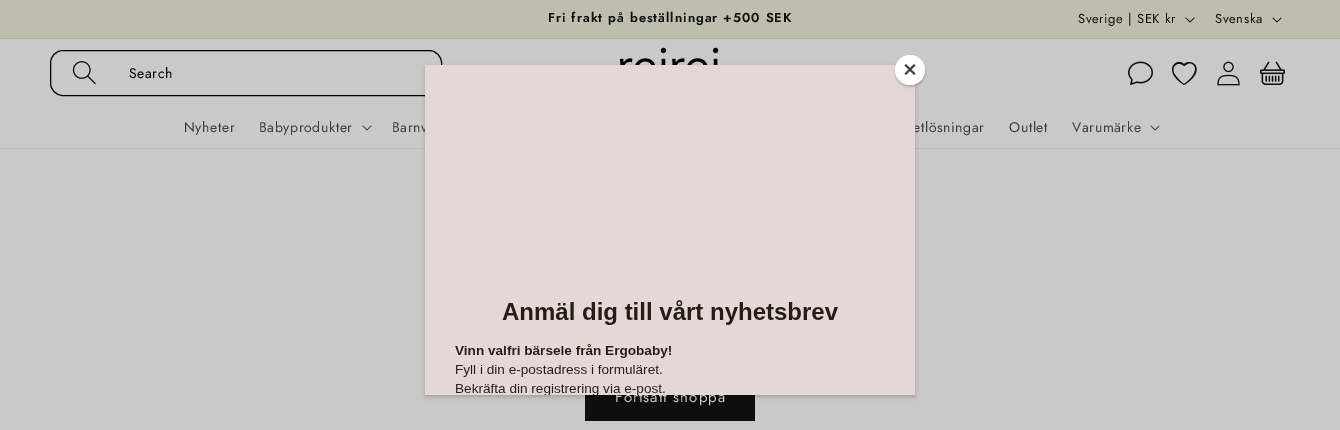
%!PS
<< /PageSize [1340 430] /PageUsesTransparency true >> setpagedevice
/rgb { dup -16 bitshift 255 div exch dup -8 bitshift 255 and 255 div exch 255 and 255 div setrgbcolor } def
/font { [ exch dup neg 0 0 3 -1 roll 0 0 ] selectfont } def
/alpha { dup .setfillconstantalpha .setstrokeconstantalpha } def
/circle { newpath 0 360 arc closepath } def
/roundrect { 5 dict begin { /r /h /w /y /x } { exch def } forall
  x r add y moveto x w add y 2 copy h add r arct x w add y h add x 1 index r arct
  x y h add x y r arct x y 2 copy exch w add exch r arct closepath end } def
/shadow { 12 dict begin { /a /b /q /h /w /y /x } { exch def } forall gsave /was 0 def
  9 -2 -9 { dup b mul 4 div /e exch def 1 sub .425 mul 2.718 exch exp 1 add a .99 .min exch div /now exch def
    1 1 now sub 1 was sub div sub alpha /was now def
    w h .min e 2 mul add 0 gt { x e sub y e sub w e 2 mul add h e 2 mul add
      q e add b .6 mul add w h .min 2 div e add .min 0 .max roundrect fill } if } for grestore end } def
/picture { 5 dict begin { /h /w /y /x /name } { exch def } forall
  gsave x y translate w h scale
  w h 8 [w 0 0 h 0 0] name (r) file false 3 colorimage grestore end } def
0 .pushpdf14devicefilter
0 430 translate 1 -1 scale
4 setmiterlimit
16#C9C9C9 rgb
0 0 1340 430 rectfill
16#BEBEAF rgb
0 0 1340 38 rectfill
16#B0B0A3 rgb
0 38 1340 1 rectfill
/Jost-SemiBold 13 font
16#0E0E0E rgb
548 22 moveto 1 0 (Fri frakt på beställningar +500 SEK) ashow
/Jost-Regular 13 font
1078 23 moveto 0.6 0 (Sverige | SEK kr) ashow
(pic1.raw) 1185 17 10 6 picture
1215 23 moveto 0.6 0 (Svenska) ashow
(pic1.raw) 1272 17 10 6 picture
16#BABABA rgb
0 148 1340 1 rectfill
(pic3.raw) 619 47 100 18 picture
16#000000 rgb
50.5 50.5 391 45 12.5 roundrect stroke
16#0E0E0E rgb
585 395 170 26 rectfill
16#000000 rgb
425 67 490 330 0 2 0.2 shadow
/Jost-Regular 14 font
16#3D3D3D rgb
392 132 moveto 0.6 0 (Barnv) ashow
913 132 moveto 0.6 0 (etlösningar) ashow
/Jost-Regular 15 font
16#C9C9C9 rgb
615 402 moveto 1 0 (Fortsätt shoppa) ashow
(pic2.raw) 425 65 490 330 picture
16#000000 rgb
895 57 30 30 15 1 0.2 shadow
16#FFFFFF rgb
910 70 15 circle fill
16#414141 rgb
914 64 moveto 915.5 65.5 lineto 906 75 lineto 904.5 73.5 lineto closepath fill
904.5 65.5 moveto 906 64 lineto 915.5 73.5 lineto 914 75 lineto closepath fill
(pic4.raw) 72 61 24 24 picture
/Jost-Regular 14 font
16#000000 rgb
129 78 moveto 0.6 0 (Search) ashow
(pic5.raw) 1128 61 25 24 picture
16#0E0E0E rgb
1184 66 moveto 1179 61 1171 65 1174 73 curveto 1176 77 1180 81 1184 84 curveto 1204 70 1192 59 1186 65 curveto closepath 1184 85 moveto 1161 70 1177 57 1184 64 curveto 1192 57 1208 70 1184 85 curveto fill
(pic6.raw) 1217 61 23 25 picture
(pic7.raw) 1260 61 25 24 picture
16#3D3D3D rgb
184 132 moveto 0.6 0 (Nyheter) ashow
259 132 moveto 0.6 0 (Babyprodukter) ashow
(pic8.raw) 362 125 10 6 picture
1009 132 moveto 0.6 0 (Outlet) ashow
1072 132 moveto 0.6 0 (Varumärke) ashow
(pic8.raw) 1150 125 10 6 picture
.poppdf14devicefilter showpage
